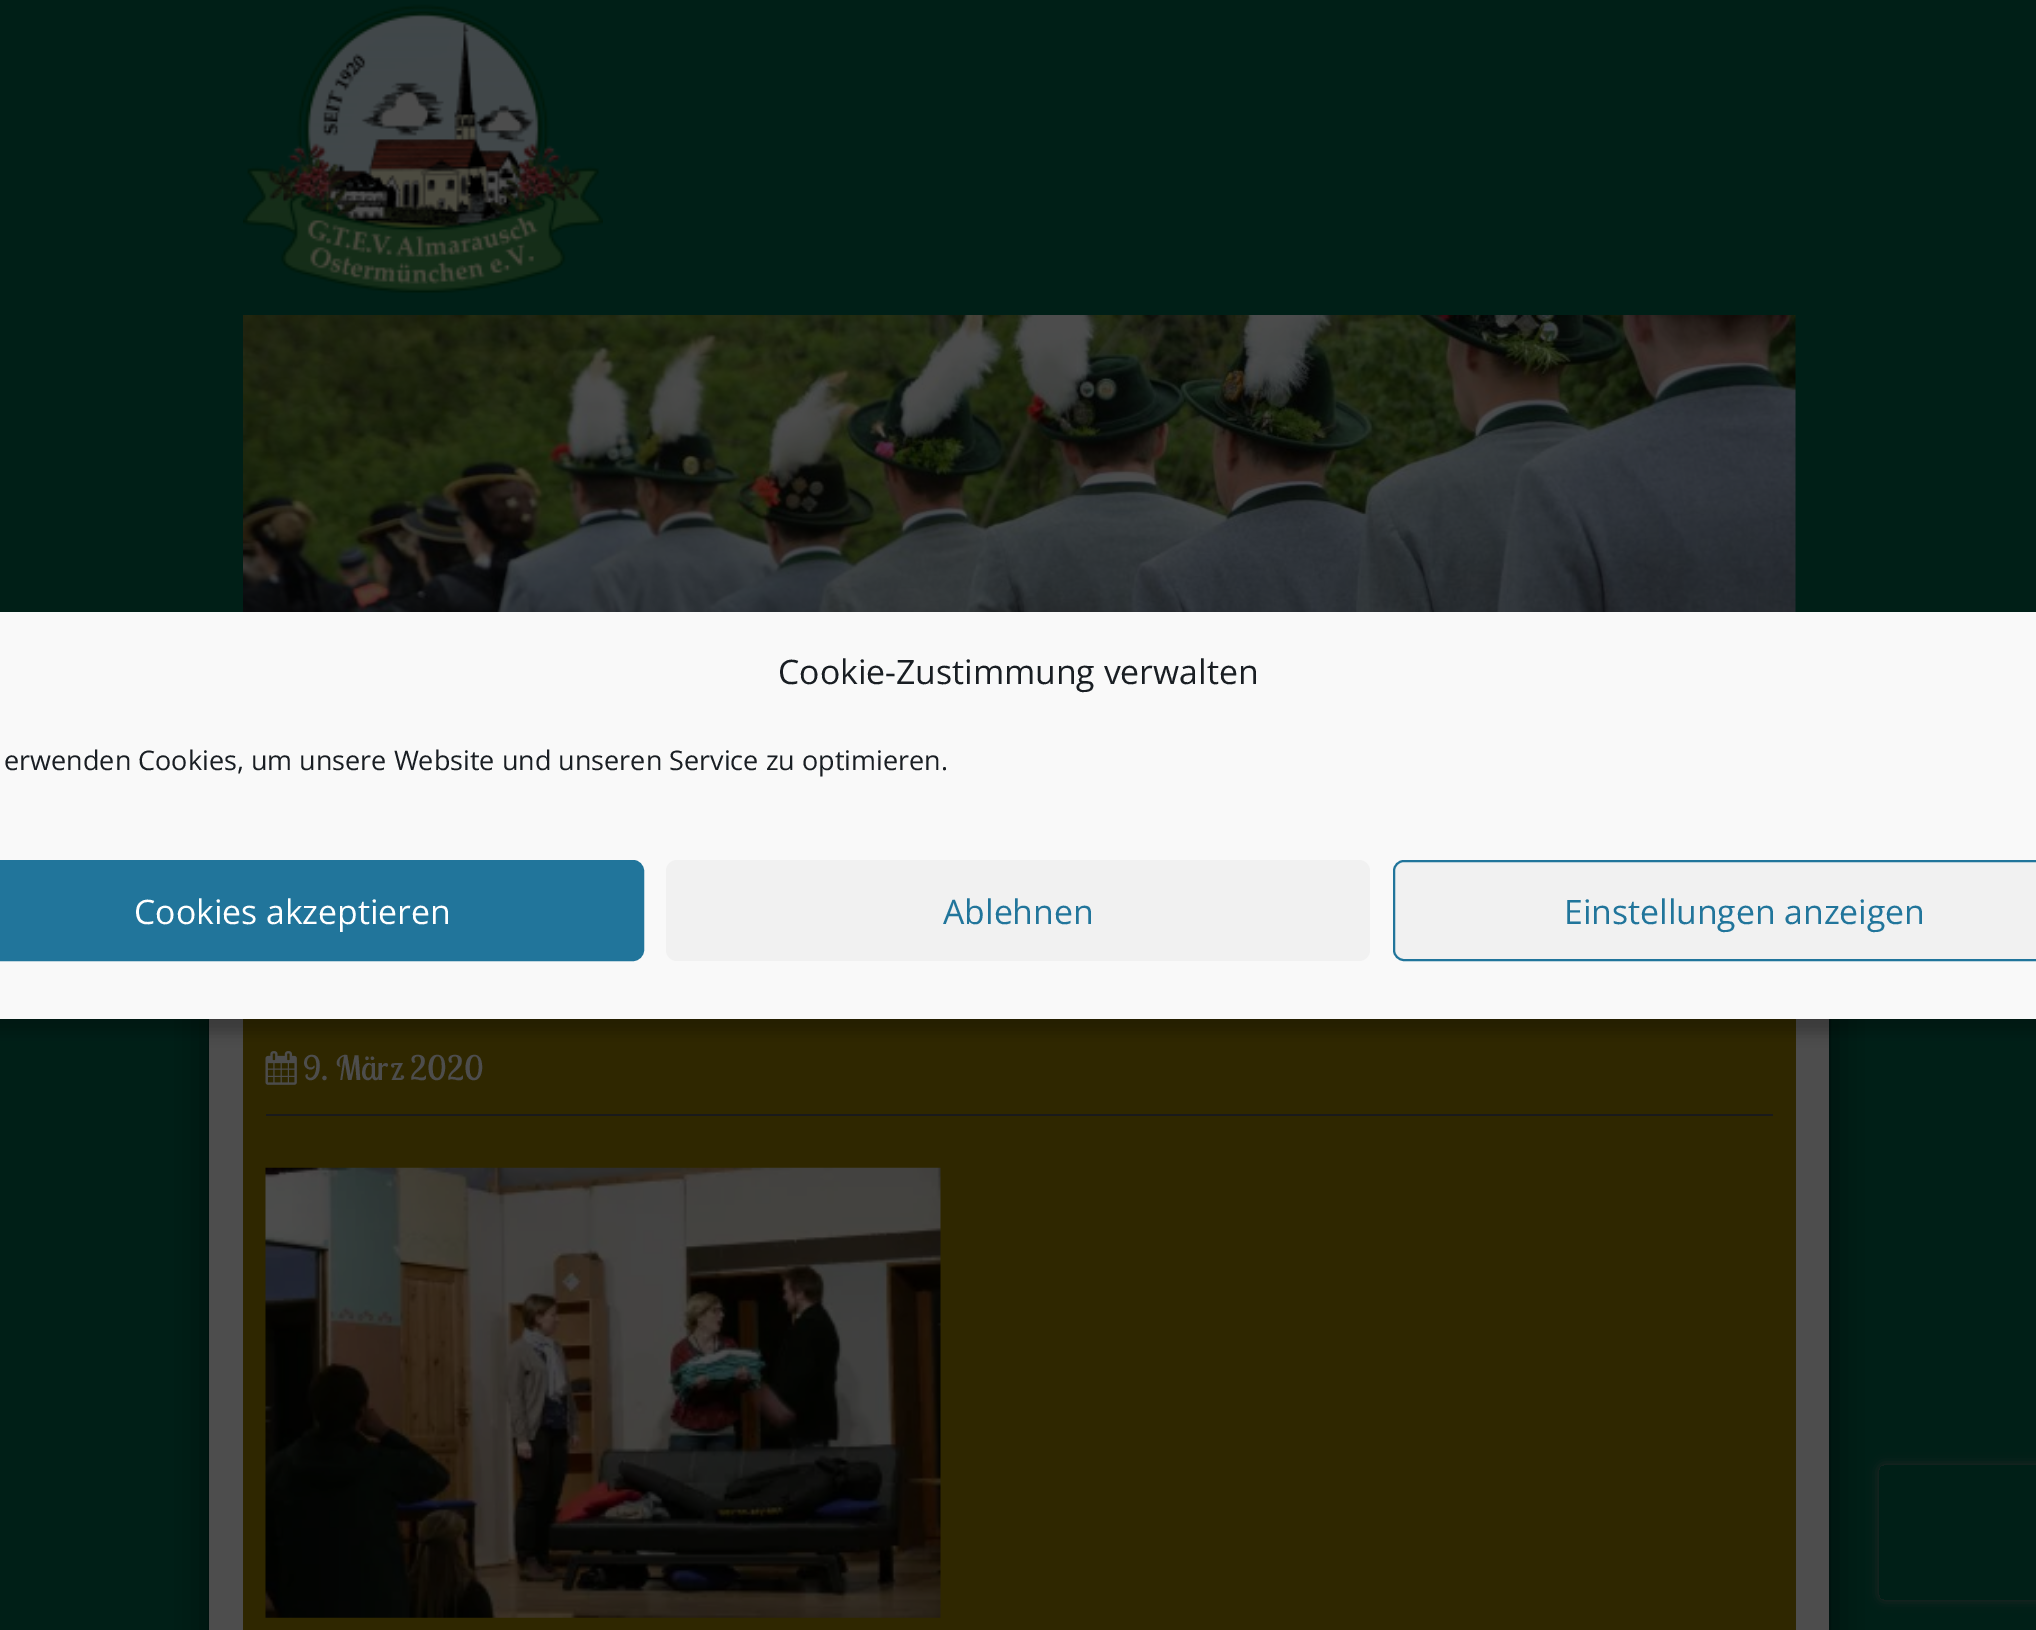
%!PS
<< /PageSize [2036 1630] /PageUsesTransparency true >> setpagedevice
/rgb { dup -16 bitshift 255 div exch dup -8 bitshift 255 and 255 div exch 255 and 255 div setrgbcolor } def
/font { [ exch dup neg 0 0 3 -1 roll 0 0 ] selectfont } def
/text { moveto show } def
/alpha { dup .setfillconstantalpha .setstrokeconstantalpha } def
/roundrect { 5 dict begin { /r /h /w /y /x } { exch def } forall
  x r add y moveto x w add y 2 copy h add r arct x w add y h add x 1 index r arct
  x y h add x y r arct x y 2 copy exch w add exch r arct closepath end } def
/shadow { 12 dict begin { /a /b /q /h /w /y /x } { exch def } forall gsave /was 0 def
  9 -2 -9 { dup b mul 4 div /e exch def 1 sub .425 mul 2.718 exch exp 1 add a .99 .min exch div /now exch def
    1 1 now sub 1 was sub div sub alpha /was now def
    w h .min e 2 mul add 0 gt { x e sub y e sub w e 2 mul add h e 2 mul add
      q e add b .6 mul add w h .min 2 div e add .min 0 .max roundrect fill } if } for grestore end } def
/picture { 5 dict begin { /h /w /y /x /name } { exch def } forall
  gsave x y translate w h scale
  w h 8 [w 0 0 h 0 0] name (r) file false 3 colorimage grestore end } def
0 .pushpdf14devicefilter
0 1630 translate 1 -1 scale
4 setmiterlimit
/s1 { /OpenSans-Regular 33.75 font 16#191E23 rgb } def
/s2 { /OpenSans-Regular 27 font 16#191E23 rgb } def
/s3 { /OpenSans-Regular 33.75 font 16#FFFFFF rgb } def
/s4 { /OpenSans-Regular 33.75 font 16#21759B rgb } def
/s5 { /LobsterTwo-Regular 33.75 font 16#4D4D4D rgb } def
16#001F17 rgb
0 0 2036 1630 rectfill
(pic2.raw) 243 315 1553 297 picture
16#000000 rgb
212 842 1615 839 0 17 0.75 shadow
16#4D4D4D rgb
209 1019 1620 611 rectfill
16#2F2700 rgb
243 1019 1553 611 rectfill
(pic3.raw) 265 1051 32 34 picture
16#000000 rgb
-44 626 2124 407 23 7 0.23 shadow
16#F9F9F9 rgb
0 612 2036 407 rectfill
s1
(Cookie-Zustimmung verwalten) 778 684 text
s2
(erwenden Cookies, um unsere Website und unseren Service zu optimieren.) 4 770 text
16#21759B rgb
-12 861 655 99 10 roundrect gsave fill grestore
2 setlinewidth
stroke
s3
(Cookies akzeptieren) 134 924 text
16#F1F1F1 rgb
666 860 704 101 11 roundrect fill
s4
(Ablehnen) 943 924 text
16#F1F1F1 rgb
1394 861 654 99 10 roundrect gsave fill grestore
16#21759B rgb
stroke
(Einstellungen anzeigen) 1564 924 text
(pic1.raw) 243 4 360 289 picture
16#1A1A1A rgb
266 1114 1507 2 rectfill
s5
(9. März 2020) 303 1080 text
(pic4.raw) 265 1167 676 451 picture
gsave
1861 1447 moveto 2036 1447 lineto 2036 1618 lineto 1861 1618 lineto closepath 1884 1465 moveto 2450 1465 lineto 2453 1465 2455 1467 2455 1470 curveto 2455 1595 lineto 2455 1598 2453 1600 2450 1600 curveto 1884 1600 lineto 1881 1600 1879 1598 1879 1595 curveto 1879 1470 lineto 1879 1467 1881 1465 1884 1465 curveto closepath eoclip newpath
16#262626 rgb
1879 1465 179 135 5 5.5 1 shadow
grestore
.poppdf14devicefilter showpage
